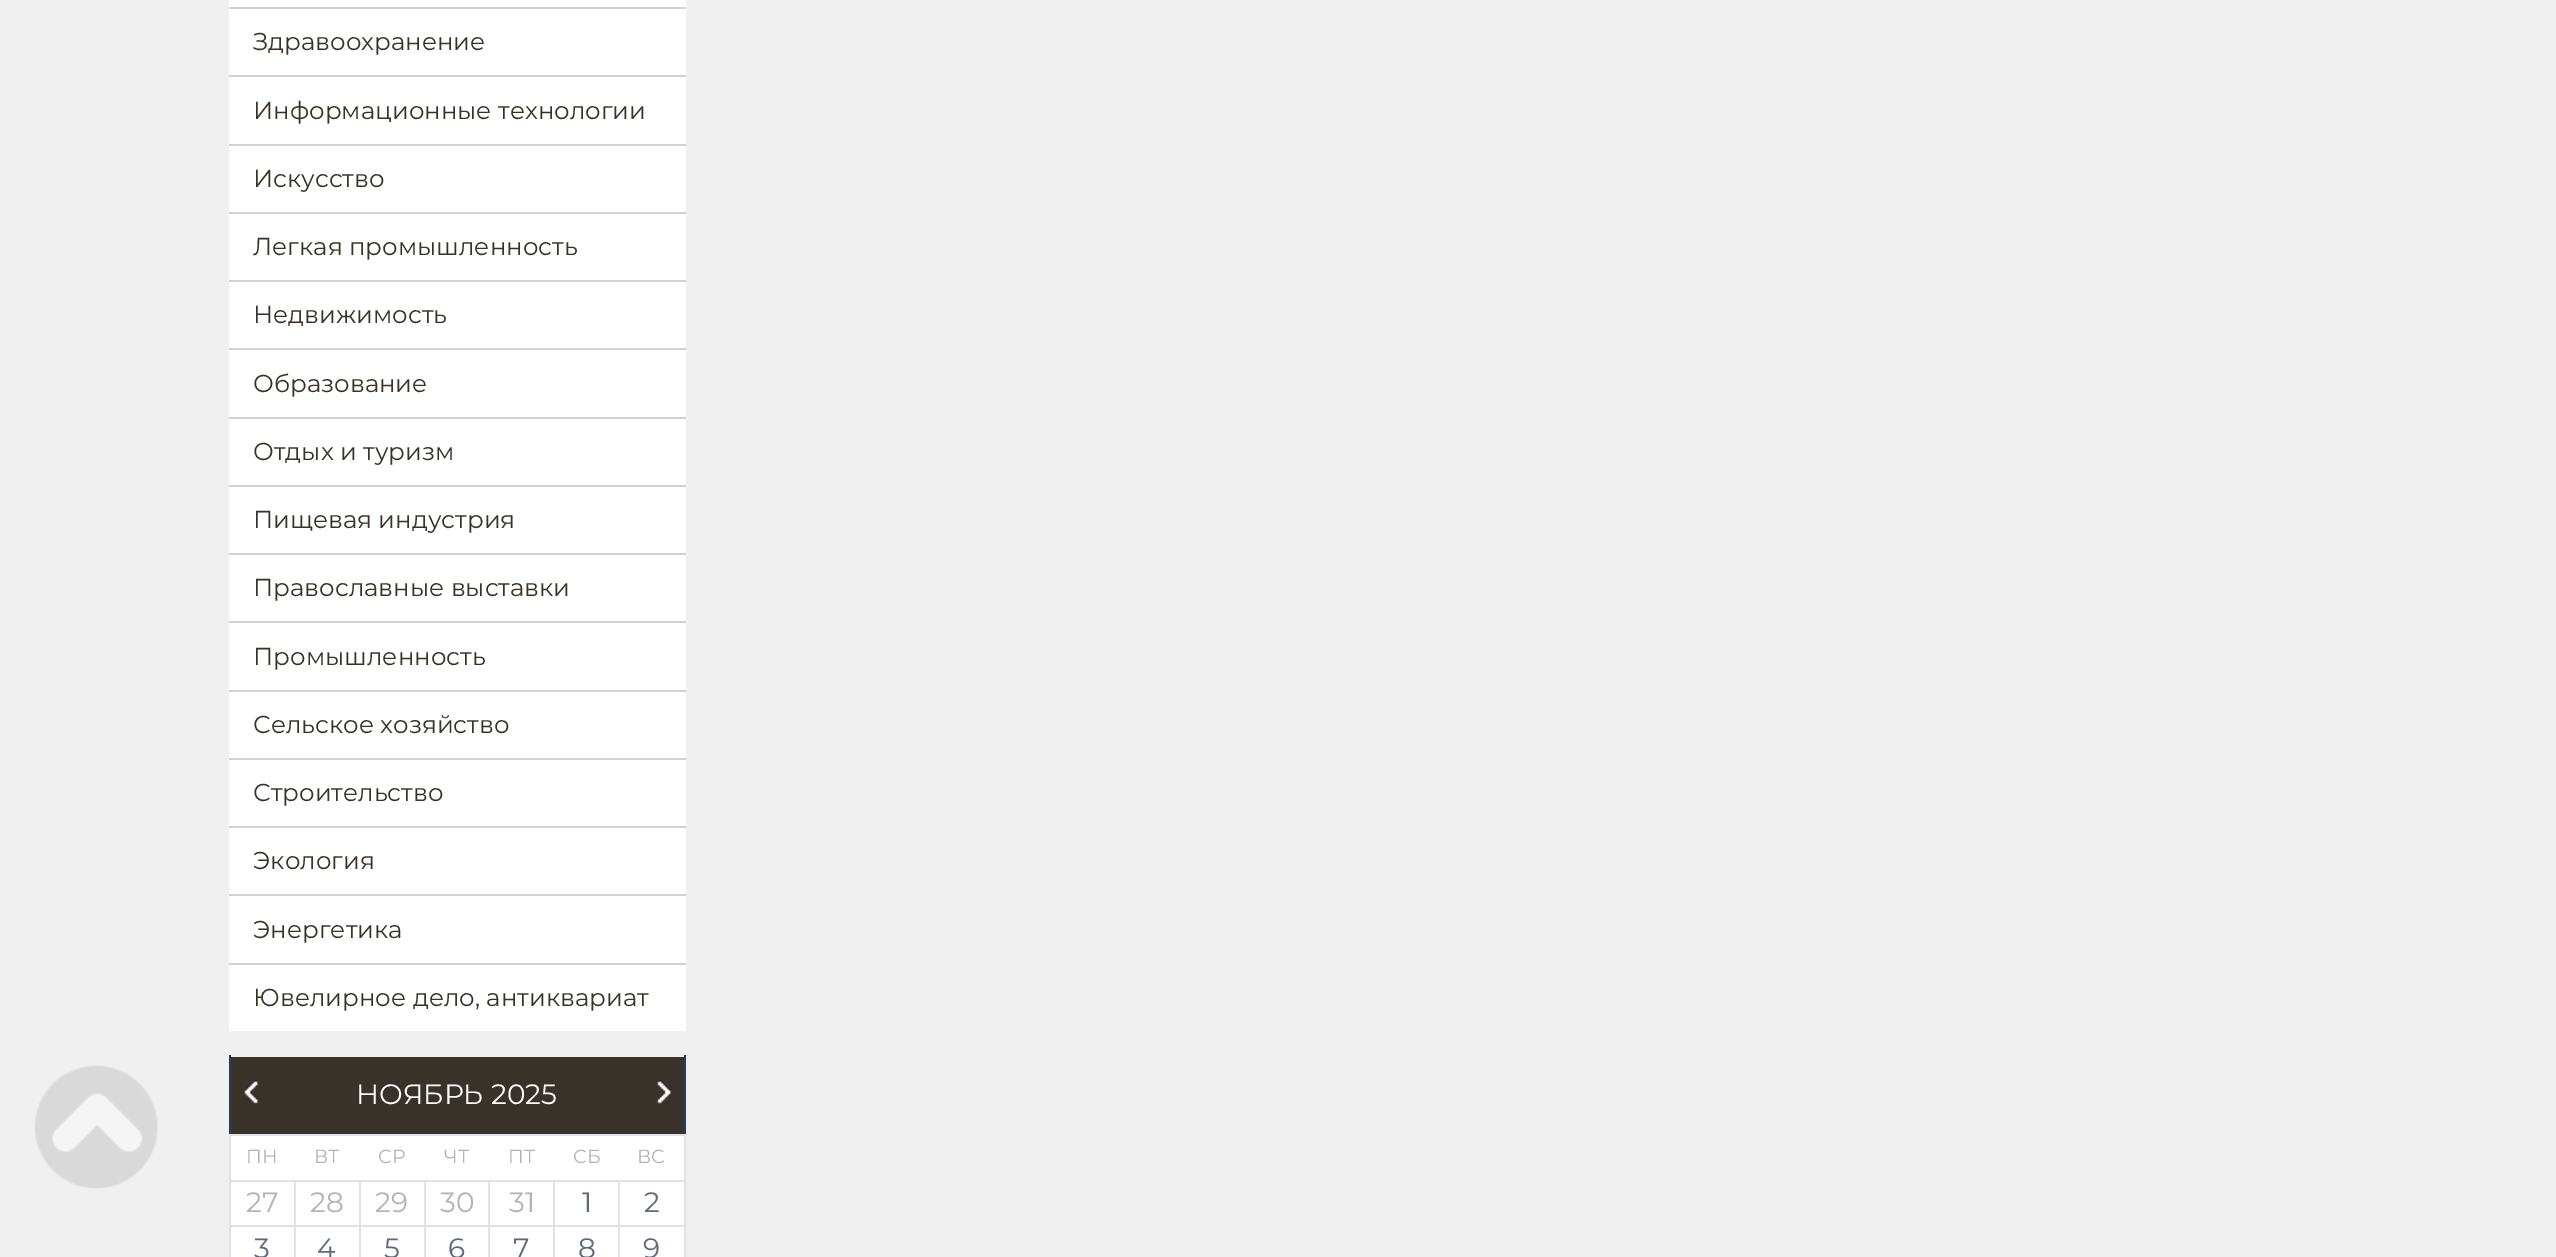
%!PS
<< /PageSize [2556 1257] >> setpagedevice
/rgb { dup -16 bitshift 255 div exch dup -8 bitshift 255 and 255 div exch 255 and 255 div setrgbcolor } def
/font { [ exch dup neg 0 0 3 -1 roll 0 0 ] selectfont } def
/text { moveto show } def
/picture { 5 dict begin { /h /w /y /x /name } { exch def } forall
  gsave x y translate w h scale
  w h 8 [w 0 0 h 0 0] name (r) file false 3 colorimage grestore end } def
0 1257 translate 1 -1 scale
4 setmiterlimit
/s1 { /Montserrat-Regular 24.5 font 16#39322A rgb } def
/s2 { /Montserrat-Regular 28 font 16#FFFFFF rgb } def
/s3 { /Montserrat-Regular 19 font 16#B3B3B3 rgb } def
/s4 { /Montserrat-Regular 28 font 16#B3B3B3 rgb } def
/s5 { /Montserrat-Regular 28 font 16#5E687D rgb } def
16#F0F0F0 rgb
0 0 2556 1257 rectfill
(pic1.raw) 35 1065 123 124 picture
16#FFFFFF rgb
229 0 457 1031 rectfill
16#D1D1D1 rgb
229 7 457 2 rectfill
229 75 457 2 rectfill
s1
(Здравоохранение) 253 50 text
16#D1D1D1 rgb
229 144 457 2 rectfill
s1
(Информационные технологии) 253 119 text
16#D1D1D1 rgb
229 212 457 2 rectfill
s1
(Искусство) 253 187 text
16#D1D1D1 rgb
229 280 457 2 rectfill
s1
(Легкая промышленность) 253 255 text
16#D1D1D1 rgb
229 348 457 2 rectfill
s1
(Недвижимость) 253 323 text
16#D1D1D1 rgb
229 417 457 2 rectfill
s1
(Образование) 253 392 text
16#D1D1D1 rgb
229 485 457 2 rectfill
s1
(Отдых и туризм) 253 460 text
16#D1D1D1 rgb
229 553 457 2 rectfill
s1
(Пищевая индустрия) 253 528 text
16#D1D1D1 rgb
229 621 457 2 rectfill
s1
(Православные выставки) 253 596 text
16#D1D1D1 rgb
229 690 457 2 rectfill
s1
(Промышленность) 253 665 text
16#D1D1D1 rgb
229 758 457 2 rectfill
s1
(Сельское хозяйство) 253 733 text
16#D1D1D1 rgb
229 826 457 2 rectfill
s1
(Строительство) 253 801 text
16#D1D1D1 rgb
229 894 457 2 rectfill
s1
(Экология) 253 869 text
16#D1D1D1 rgb
229 963 457 2 rectfill
s1
(Энергетика) 253 938 text
(Ювелирное дело, антиквариат) 253 1006 text
231 1057 453 77 rectfill
16#233F5B rgb
684 1055 2 79 rectfill
229 1055 2 79 rectfill
(pic2.raw) 244 1080 14 24 picture
s2
(НОЯБРЬ 2025) 356 1104 text
(pic3.raw) 657 1080 14 24 picture
16#E2E2E2 rgb
684 1134 2 123 rectfill
229 1134 2 123 rectfill
229 1134 457 2 rectfill
16#FFFFFF rgb
231 1136 453 44 rectfill
s3
(ПН) 246 1163 text
(ВТ) 314 1163 text
(СР) 378 1163 text
(ЧТ) 444 1163 text
(ПТ) 508 1163 text
(СБ) 573 1163 text
(ВС) 637 1163 text
16#E2E2E2 rgb
229 1180 457 2 rectfill
16#FFFFFF rgb
231 1182 63 43 rectfill
s4
(27) 246 1212 text
16#FFFFFF rgb
296 1182 63 43 rectfill
s4
(28) 310 1212 text
16#FFFFFF rgb
361 1182 63 43 rectfill
s4
(29) 375 1212 text
16#FFFFFF rgb
426 1182 62 43 rectfill
s4
(30) 440 1212 text
16#FFFFFF rgb
490 1182 63 43 rectfill
s4
(31) 509 1212 text
16#FFFFFF rgb
555 1182 63 43 rectfill
s5
(1) 582 1212 text
16#FFFFFF rgb
620 1182 64 43 rectfill
s5
(2) 644 1212 text
16#E2E2E2 rgb
229 1225 457 2 rectfill
16#FFFFFF rgb
231 1227 63 30 rectfill
s5
(3) 254 1258 text
16#FFFFFF rgb
296 1227 63 30 rectfill
16#E2E2E2 rgb
294 1180 2 77 rectfill
s5
(4) 317 1258 text
16#FFFFFF rgb
361 1227 63 30 rectfill
16#E2E2E2 rgb
359 1180 2 77 rectfill
s5
(5) 384 1258 text
16#FFFFFF rgb
426 1227 62 30 rectfill
16#E2E2E2 rgb
424 1180 2 77 rectfill
s5
(6) 448 1258 text
16#FFFFFF rgb
490 1227 63 30 rectfill
16#E2E2E2 rgb
488 1180 2 77 rectfill
s5
(7) 513 1258 text
16#FFFFFF rgb
555 1227 63 30 rectfill
16#E2E2E2 rgb
553 1180 2 77 rectfill
s5
(8) 578 1258 text
16#FFFFFF rgb
620 1227 64 30 rectfill
16#E2E2E2 rgb
618 1180 2 77 rectfill
s5
(9) 643 1258 text
showpage
